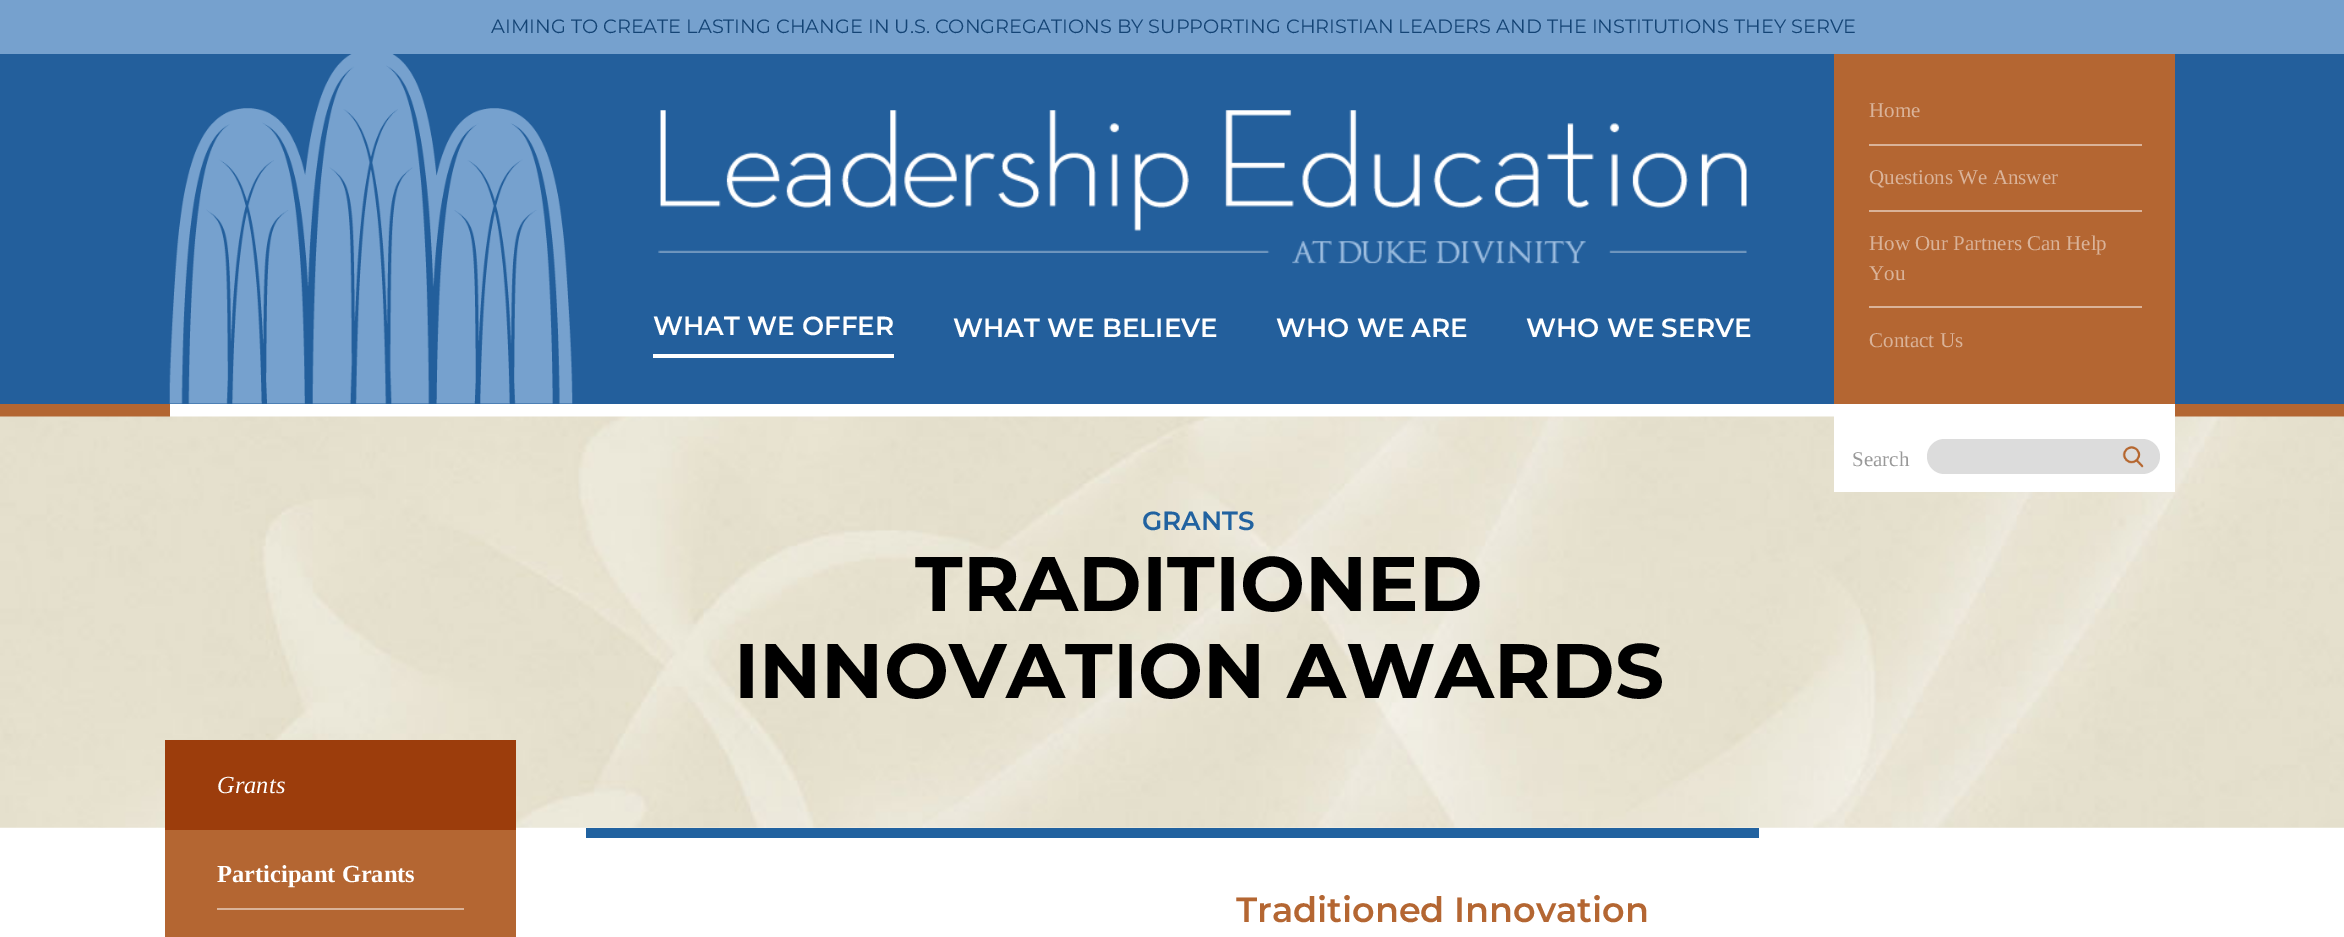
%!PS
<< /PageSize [2344 937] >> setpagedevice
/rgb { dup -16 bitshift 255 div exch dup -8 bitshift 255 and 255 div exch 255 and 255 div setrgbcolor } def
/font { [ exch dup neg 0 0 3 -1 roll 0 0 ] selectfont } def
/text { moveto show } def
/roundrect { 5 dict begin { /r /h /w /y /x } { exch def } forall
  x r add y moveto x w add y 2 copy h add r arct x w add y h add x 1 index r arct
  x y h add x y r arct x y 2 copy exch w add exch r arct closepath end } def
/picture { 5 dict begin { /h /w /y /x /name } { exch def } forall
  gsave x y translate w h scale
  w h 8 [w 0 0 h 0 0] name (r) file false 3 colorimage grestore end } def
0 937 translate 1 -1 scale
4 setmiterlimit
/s1 { /Montserrat-Regular 19.3 font 16#144475 rgb } def
/s2 { /Montserrat-SemiBold 26.25 font 16#FFFFFF rgb } def
/s3 { /LiberationSerif-Regular 21 font 16#DAB399 rgb } def
/s4 { /LiberationSerif-Regular 21 font 16#999999 rgb } def
/s5 { /Montserrat-SemiBold 26.25 font 16#2162A0 rgb } def
/s6 { /Montserrat-Bold 77 font 16#000000 rgb } def
/s7 { /LiberationSerif-Italic 24.5 font 16#FFFFFF rgb } def
/s8 { /LiberationSerif-Bold 24.5 font 16#FFFFFF rgb } def
/s9 { /Montserrat-SemiBold 35 font 16#B46632 rgb } def
16#FFFFFF rgb
0 0 2344 937 rectfill
16#235F9C rgb
0 54 2344 350 rectfill
16#B36632 rgb
0 404 2344 13 rectfill
16#76A1CE rgb
0 0 2344 54 rectfill
s1
(AIMING TO CREATE LASTING CHANGE IN U.S. CONGREGATIONS BY SUPPORTING CHRISTIAN LEADERS AND THE INSTITUTIONS THEY SERVE) 491 33 text
(pic1.raw) 169 54 404 350 picture
16#FFFFFF rgb
170 404 2005 13 rectfill
(pic2.raw) 658 110 1089 154 picture
653 354 241 4 rectfill
s2
(WHAT WE OFFER) 653 335 text
(WHAT WE BELIEVE) 953 337 text
(WHO WE ARE) 1276 337 text
(WHO WE SERVE) 1526 337 text
16#B46632 rgb
1834 54 341 350 rectfill
16#DAB399 rgb
1869 144 273 2 rectfill
s3
(Home) 1869 117 text
1869 210 273 2 rectfill
(Questions We Answer) 1869 184 text
1869 306 273 2 rectfill
(How Our Partners Can Help) 1869 250 text
(You) 1869 280 text
(Contact Us) 1869 347 text
(pic4.raw) 0 416 2344 412 picture
16#FFFFFF rgb
1834 416 341 76 rectfill
s4
(Search) 1852 466 text
16#DCDCDC rgb
1927 439 233 35 17.5 roundrect fill
(pic3.raw) 2122 446 22 22 picture
s5
(GRANTS) 1142 530 text
s6
(TRADITIONED) 915 611 text
(INNOVATION AWARDS) 734 698 text
16#B46632 rgb
165 830 351 107 rectfill
16#9C3D0C rgb
165 740 351 90 rectfill
s7
(Grants) 217 793 text
s8
(Participant Grants) 217 882 text
16#DAB399 rgb
217 908 247 2 rectfill
16#2162A0 rgb
586 828 1173 10 rectfill
s9
(Traditioned Innovation) 1236 922 text
showpage
